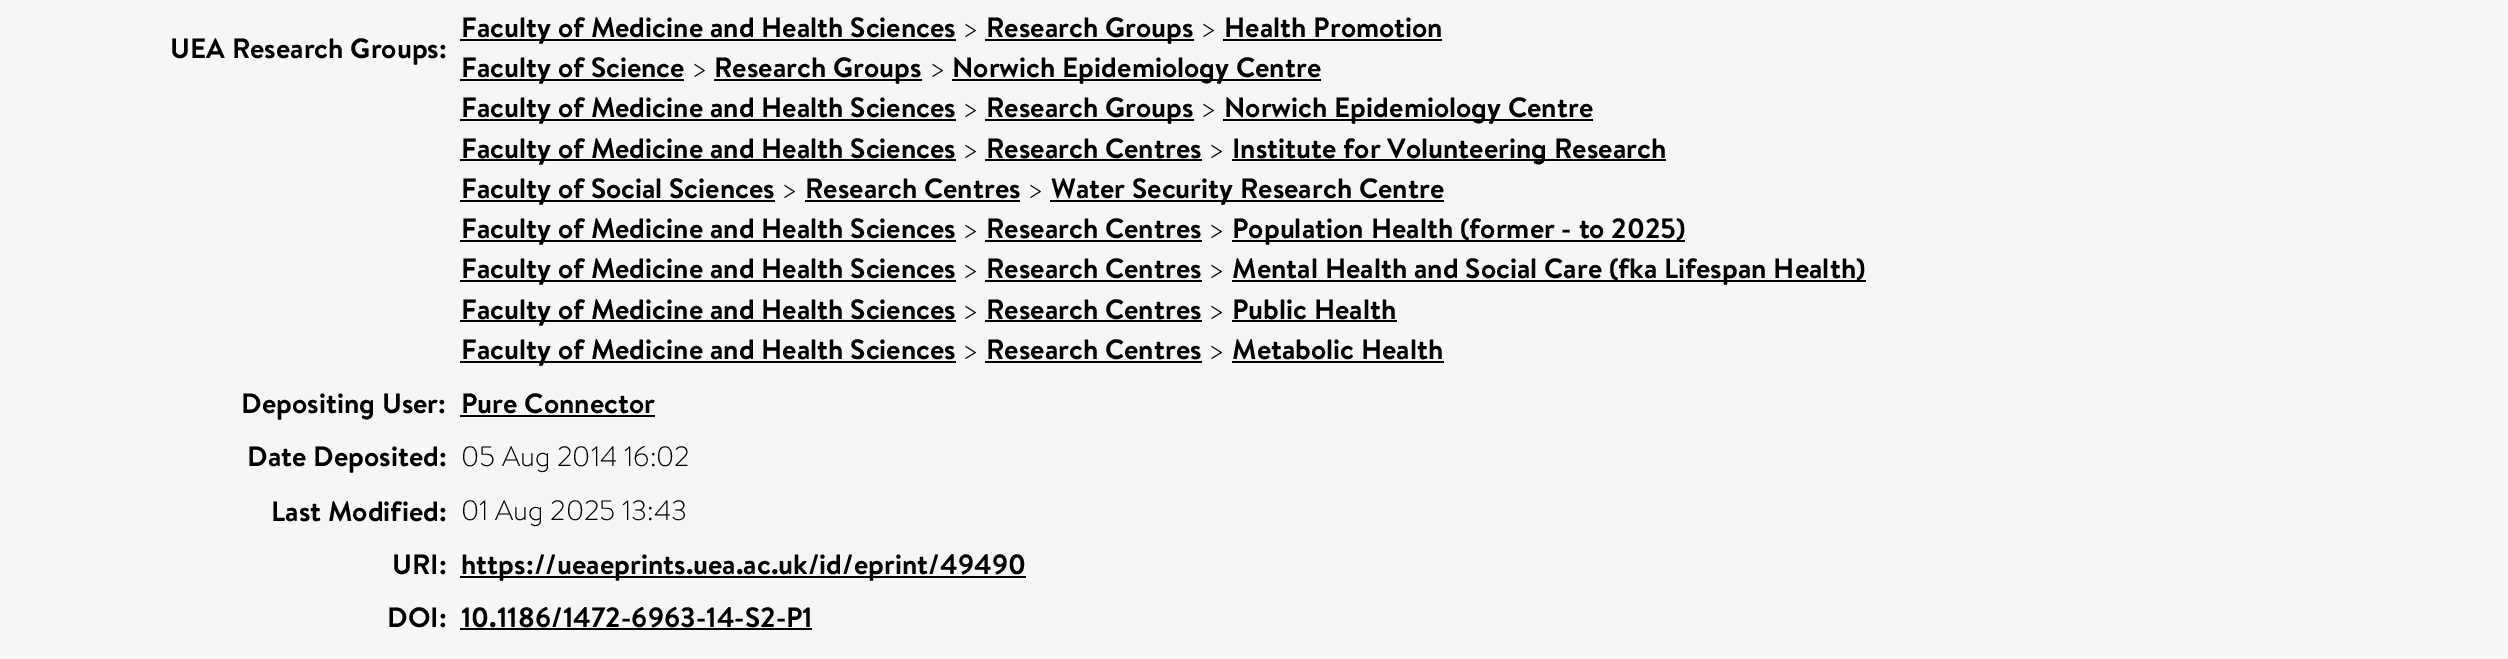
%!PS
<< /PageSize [2508 659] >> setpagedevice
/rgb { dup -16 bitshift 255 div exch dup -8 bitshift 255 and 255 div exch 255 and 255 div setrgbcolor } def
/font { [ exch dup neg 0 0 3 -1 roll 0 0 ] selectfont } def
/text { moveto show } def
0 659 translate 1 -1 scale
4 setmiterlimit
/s1 { /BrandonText-Bold 28 font 16#000000 rgb } def
/s2 { /BrandonText-Light 28 font 16#000000 rgb } def
16#F6F6F6 rgb
0 0 2508 659 rectfill
s1
(UEA Research Groups:) 170 58 text
460 39 496 2 rectfill
(Faculty of Medicine and Health Sciences) 461 37 text
s2
(>) 962 37 text
985 39 209 2 rectfill
s1
(Research Groups) 986 37 text
s2
(>) 1200 37 text
s1
(Health Promotion) 1224 37 text
1223 39 219 2 rectfill
460 79 224 2 rectfill
(Faculty of Science) 461 77 text
s2
(>) 691 77 text
714 79 208 2 rectfill
s1
(Research Groups) 714 77 text
s2
(>) 929 77 text
952 79 369 2 rectfill
s1
(Norwich Epidemiology Centre) 952 77 text
460 119 496 2 rectfill
(Faculty of Medicine and Health Sciences) 461 117 text
s2
(>) 962 117 text
985 119 209 2 rectfill
s1
(Research Groups) 986 117 text
s2
(>) 1200 117 text
1223 119 370 2 rectfill
s1
(Norwich Epidemiology Centre) 1224 117 text
460 159 496 2 rectfill
(Faculty of Medicine and Health Sciences) 461 158 text
s2
(>) 962 158 text
s1
(Research Centres) 986 158 text
985 159 217 2 rectfill
s2
(>) 1208 158 text
1232 159 434 2 rectfill
s1
(Institute for Volunteering Research) 1232 158 text
460 200 315 2 rectfill
(Faculty of Social Sciences) 461 198 text
s2
(>) 781 198 text
s1
(Research Centres) 805 198 text
805 200 215 2 rectfill
s2
(>) 1027 198 text
1050 200 394 2 rectfill
s1
(Water Security Research Centre) 1051 198 text
460 240 496 2 rectfill
(Faculty of Medicine and Health Sciences) 461 238 text
s2
(>) 962 238 text
s1
(Research Centres) 986 238 text
985 240 217 2 rectfill
s2
(>) 1208 238 text
1232 240 453 2 rectfill
s1
(Population Health \(former - to 2025\)) 1232 238 text
460 280 496 2 rectfill
(Faculty of Medicine and Health Sciences) 461 278 text
s2
(>) 962 278 text
s1
(Research Centres) 986 278 text
985 280 217 2 rectfill
s2
(>) 1208 278 text
1232 280 634 2 rectfill
s1
(Mental Health and Social Care \(fka Lifespan Health\)) 1232 278 text
460 320 496 2 rectfill
(Faculty of Medicine and Health Sciences) 461 319 text
s2
(>) 962 319 text
s1
(Research Centres) 986 319 text
985 320 217 2 rectfill
s2
(>) 1208 319 text
s1
(Public Health) 1232 319 text
1232 320 165 2 rectfill
460 361 496 2 rectfill
(Faculty of Medicine and Health Sciences) 461 359 text
s2
(>) 962 359 text
s1
(Research Centres) 986 359 text
985 361 217 2 rectfill
s2
(>) 1208 359 text
s1
(Metabolic Health) 1232 359 text
1232 361 212 2 rectfill
(Depositing User:) 241 413 text
(Pure Connector) 461 413 text
460 415 195 2 rectfill
(Date Deposited:) 247 466 text
s2
(05 Aug 2014 16:02) 461 466 text
s1
(Last Modified:) 271 521 text
s2
(01 Aug 2025 13:43) 461 520 text
s1
(URI:) 392 574 text
460 576 566 2 rectfill
(https://ueaeprints.uea.ac.uk/id/eprint/49490) 461 574 text
(DOI:) 387 627 text
(10.1186/1472-6963-14-S2-P1) 461 627 text
460 628 352 2 rectfill
showpage
